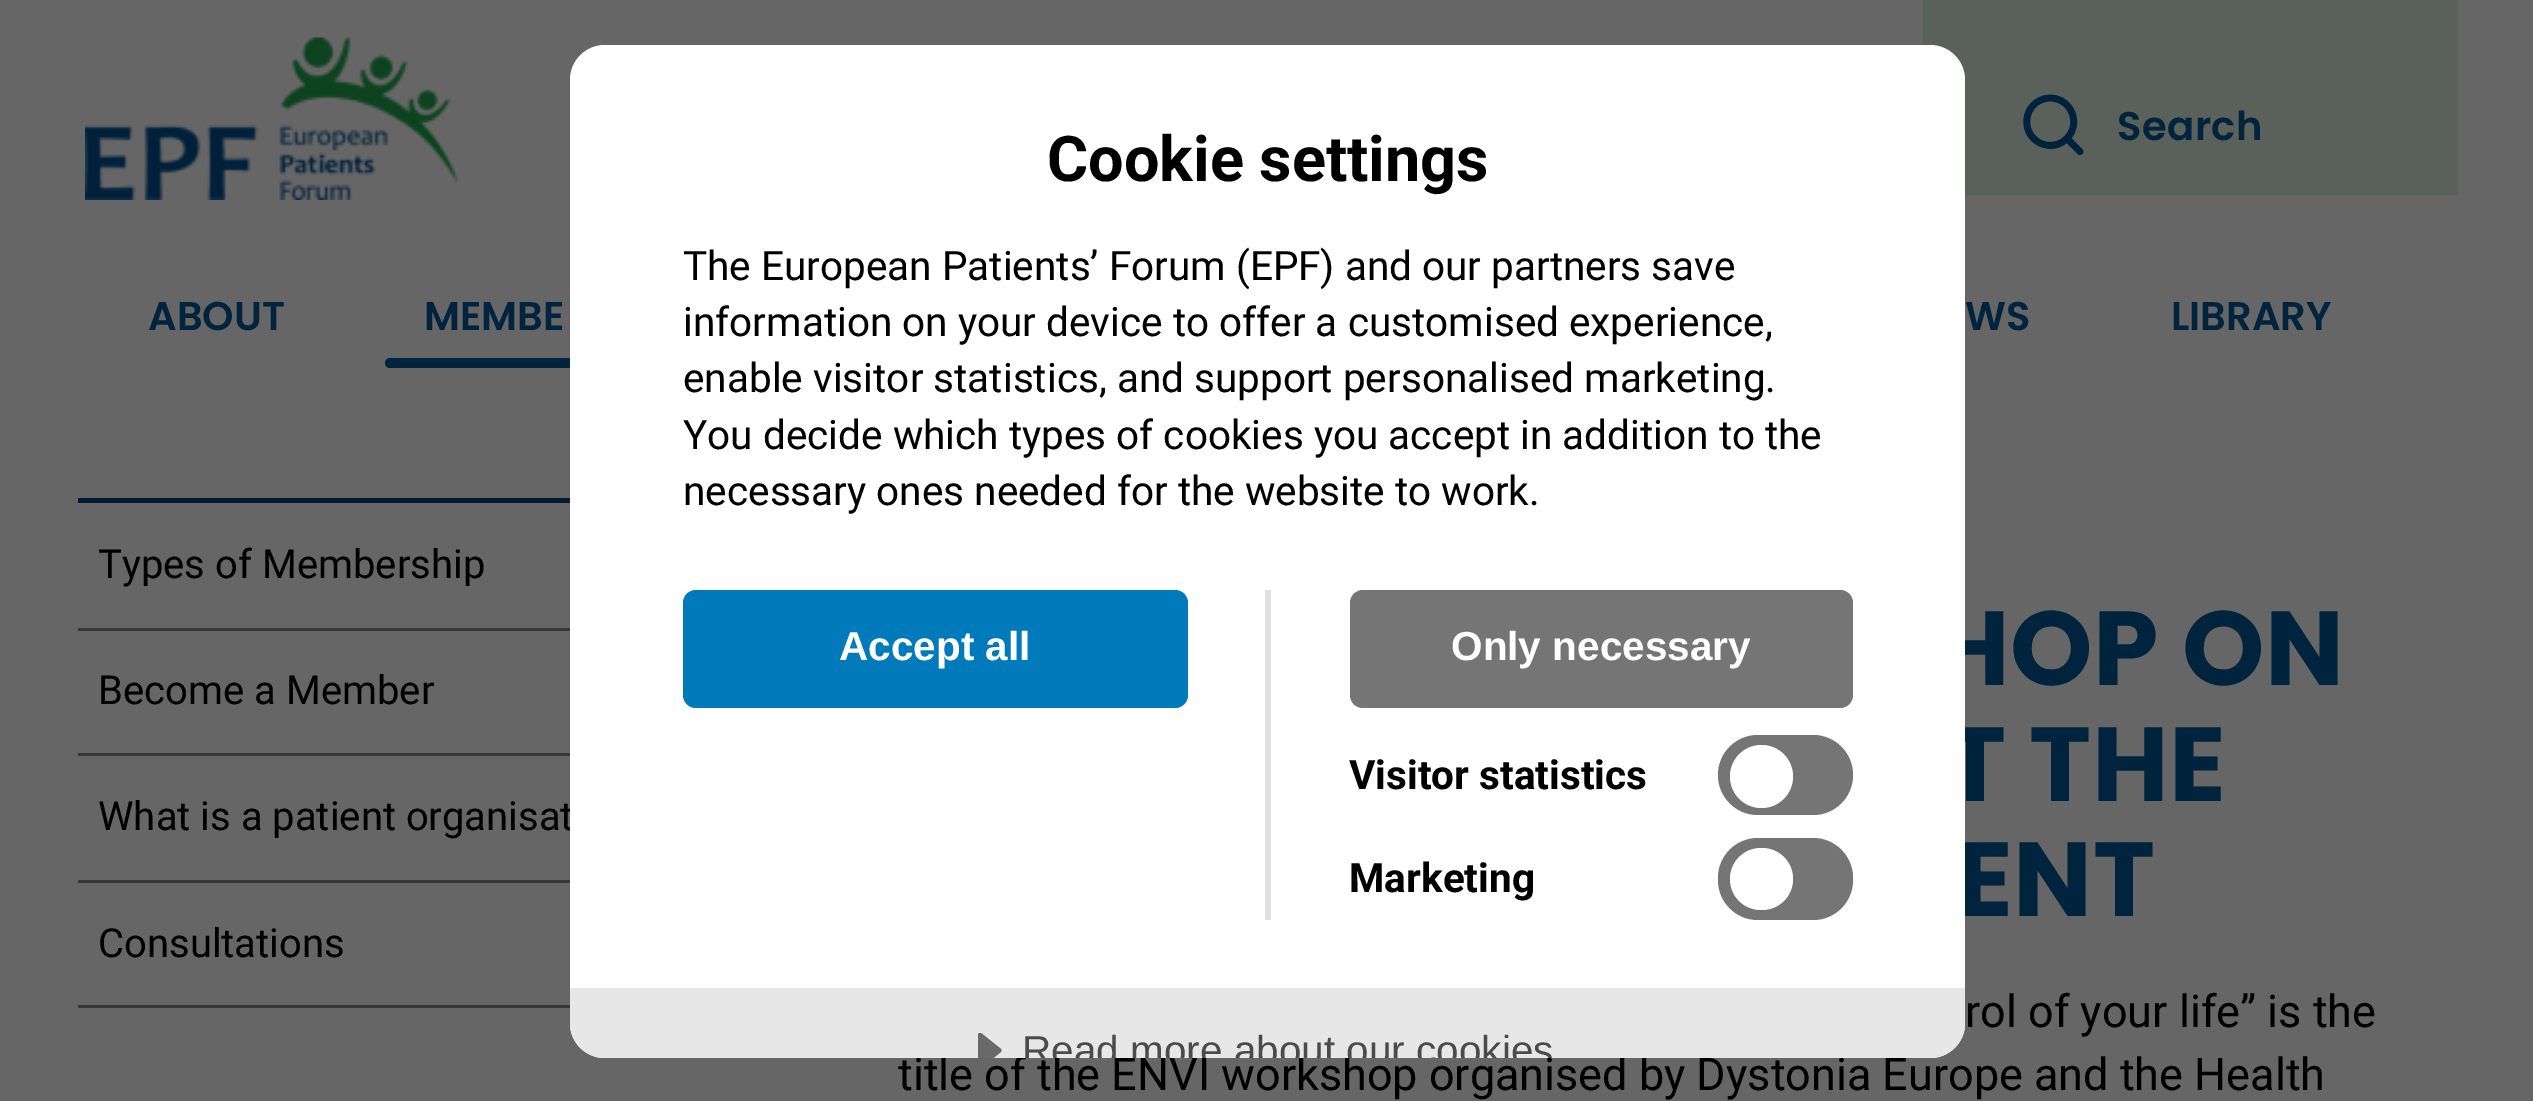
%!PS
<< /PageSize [2533 1101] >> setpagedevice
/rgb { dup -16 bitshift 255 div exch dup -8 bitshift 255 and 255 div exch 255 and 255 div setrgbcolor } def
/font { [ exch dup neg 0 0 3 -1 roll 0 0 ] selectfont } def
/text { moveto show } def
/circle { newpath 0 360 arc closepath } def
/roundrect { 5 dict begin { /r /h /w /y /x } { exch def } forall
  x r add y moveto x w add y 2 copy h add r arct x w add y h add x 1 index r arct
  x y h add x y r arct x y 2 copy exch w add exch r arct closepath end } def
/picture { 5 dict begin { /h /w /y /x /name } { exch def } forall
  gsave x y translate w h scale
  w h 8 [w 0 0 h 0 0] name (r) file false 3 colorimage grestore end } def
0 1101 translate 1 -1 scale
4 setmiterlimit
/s1 { /Poppins-SemiBold 40 font 16#00233E rgb } def
/s2 { /Roboto-Regular 40 font 16#000000 rgb } def
/s3 { /Roboto-Regular 45 font 16#000000 rgb } def
/s4 { /Roboto-Bold 63 font 16#000000 rgb } def
/s5 { /Roboto-Regular 40.5 font 16#000000 rgb } def
/s6 { /LiberationSans-Bold 40.5 font 16#FFFFFF rgb } def
/s7 { /Roboto-Bold 40.5 font 16#000000 rgb } def
/s8 { /LiberationSans-Regular 40.5 font 16#4B4B4B rgb } def
16#666666 rgb
0 0 2533 1101 rectfill
(pic1.raw) 85 37 373 163 picture
16#5A615B rgb
1923 0 535 195 rectfill
(pic2.raw) 2023 94 61 61 picture
/Poppins-SemiBold 40 font
16#00233E rgb
2117 140 moveto 0.5 0 (Search) ashow
(ABOUT) 148 330 text
(MEMBE) 424 330 text
385 358 270 10 5 roundrect fill
(WS) 1965 330 text
(LIBRARY) 2171 330 text
s2
(What is a patient organisat) 98 830 text
/Poppins-Bold 105 font
16#00233E rgb
1933 685 moveto 0.5 0 (HOP ON) ashow
1944 801 moveto 0.5 0 (T THE) ashow
1956 916 moveto 0.5 0 (ENT) ashow
s3
(title of the ENVI workshop organised by Dystonia Europe and the Health) 898 1090 text
16#FFFFFF rgb
570 45 1395 1013 35 roundrect fill
s4
(Cookie settings) 1047 181 text
s5
(The European Patients’ Forum \(EPF\) and our partners save) 683 280 text
(information on your device to offer a customised experience,) 683 336 text
(enable visitor statistics, and support personalised marketing.) 683 392 text
(You decide which types of cookies you accept in addition to the) 683 449 text
(necessary ones needed for the website to work.) 683 505 text
16#E0E0E0 rgb
1265 590 6 330 rectfill
16#017ABC rgb
683 590 505 118 13 roundrect fill
s6
(Accept all) 839 660 text
16#757575 rgb
1350 590 503 118 13 roundrect fill
s6
(Only necessary) 1451 660 text
s7
(Visitor statistics) 1349 789 text
16#757575 rgb
1718 735 135 80 40 roundrect fill
16#FFFFFF rgb
1761.5 776.5 31.5 circle fill
s7
(Marketing) 1349 892 text
16#757575 rgb
1718 838 135 82 40 roundrect fill
16#FFFFFF rgb
1730 848 63 62 31 roundrect fill
16#E7E7E7 rgb
570 988 moveto 1965 988 lineto 1965 1023 lineto 1965 1042.5 1949.5 1058 1930 1058 curveto 605 1058 lineto 585.5 1058 570 1042.5 570 1023 curveto closepath fill
(pic3.raw) 978 1033 24 25 picture
gsave
570 45 1395 1013 35 roundrect clip newpath
s8
(Read more about our cookies) 1022 1064 text
grestore
16#001A2E rgb
78 498 492 5 rectfill
16#373737 rgb
78 628 492 3 rectfill
s2
(Types of Membership) 98 578 text
16#373737 rgb
78 753 492 3 rectfill
s2
(Become a Member) 98 704 text
16#373737 rgb
78 880 492 3 rectfill
78 1005 492 3 rectfill
s2
(Consultations) 98 957 text
s3
(rol of your life” is the) 1965 1027 text
showpage
